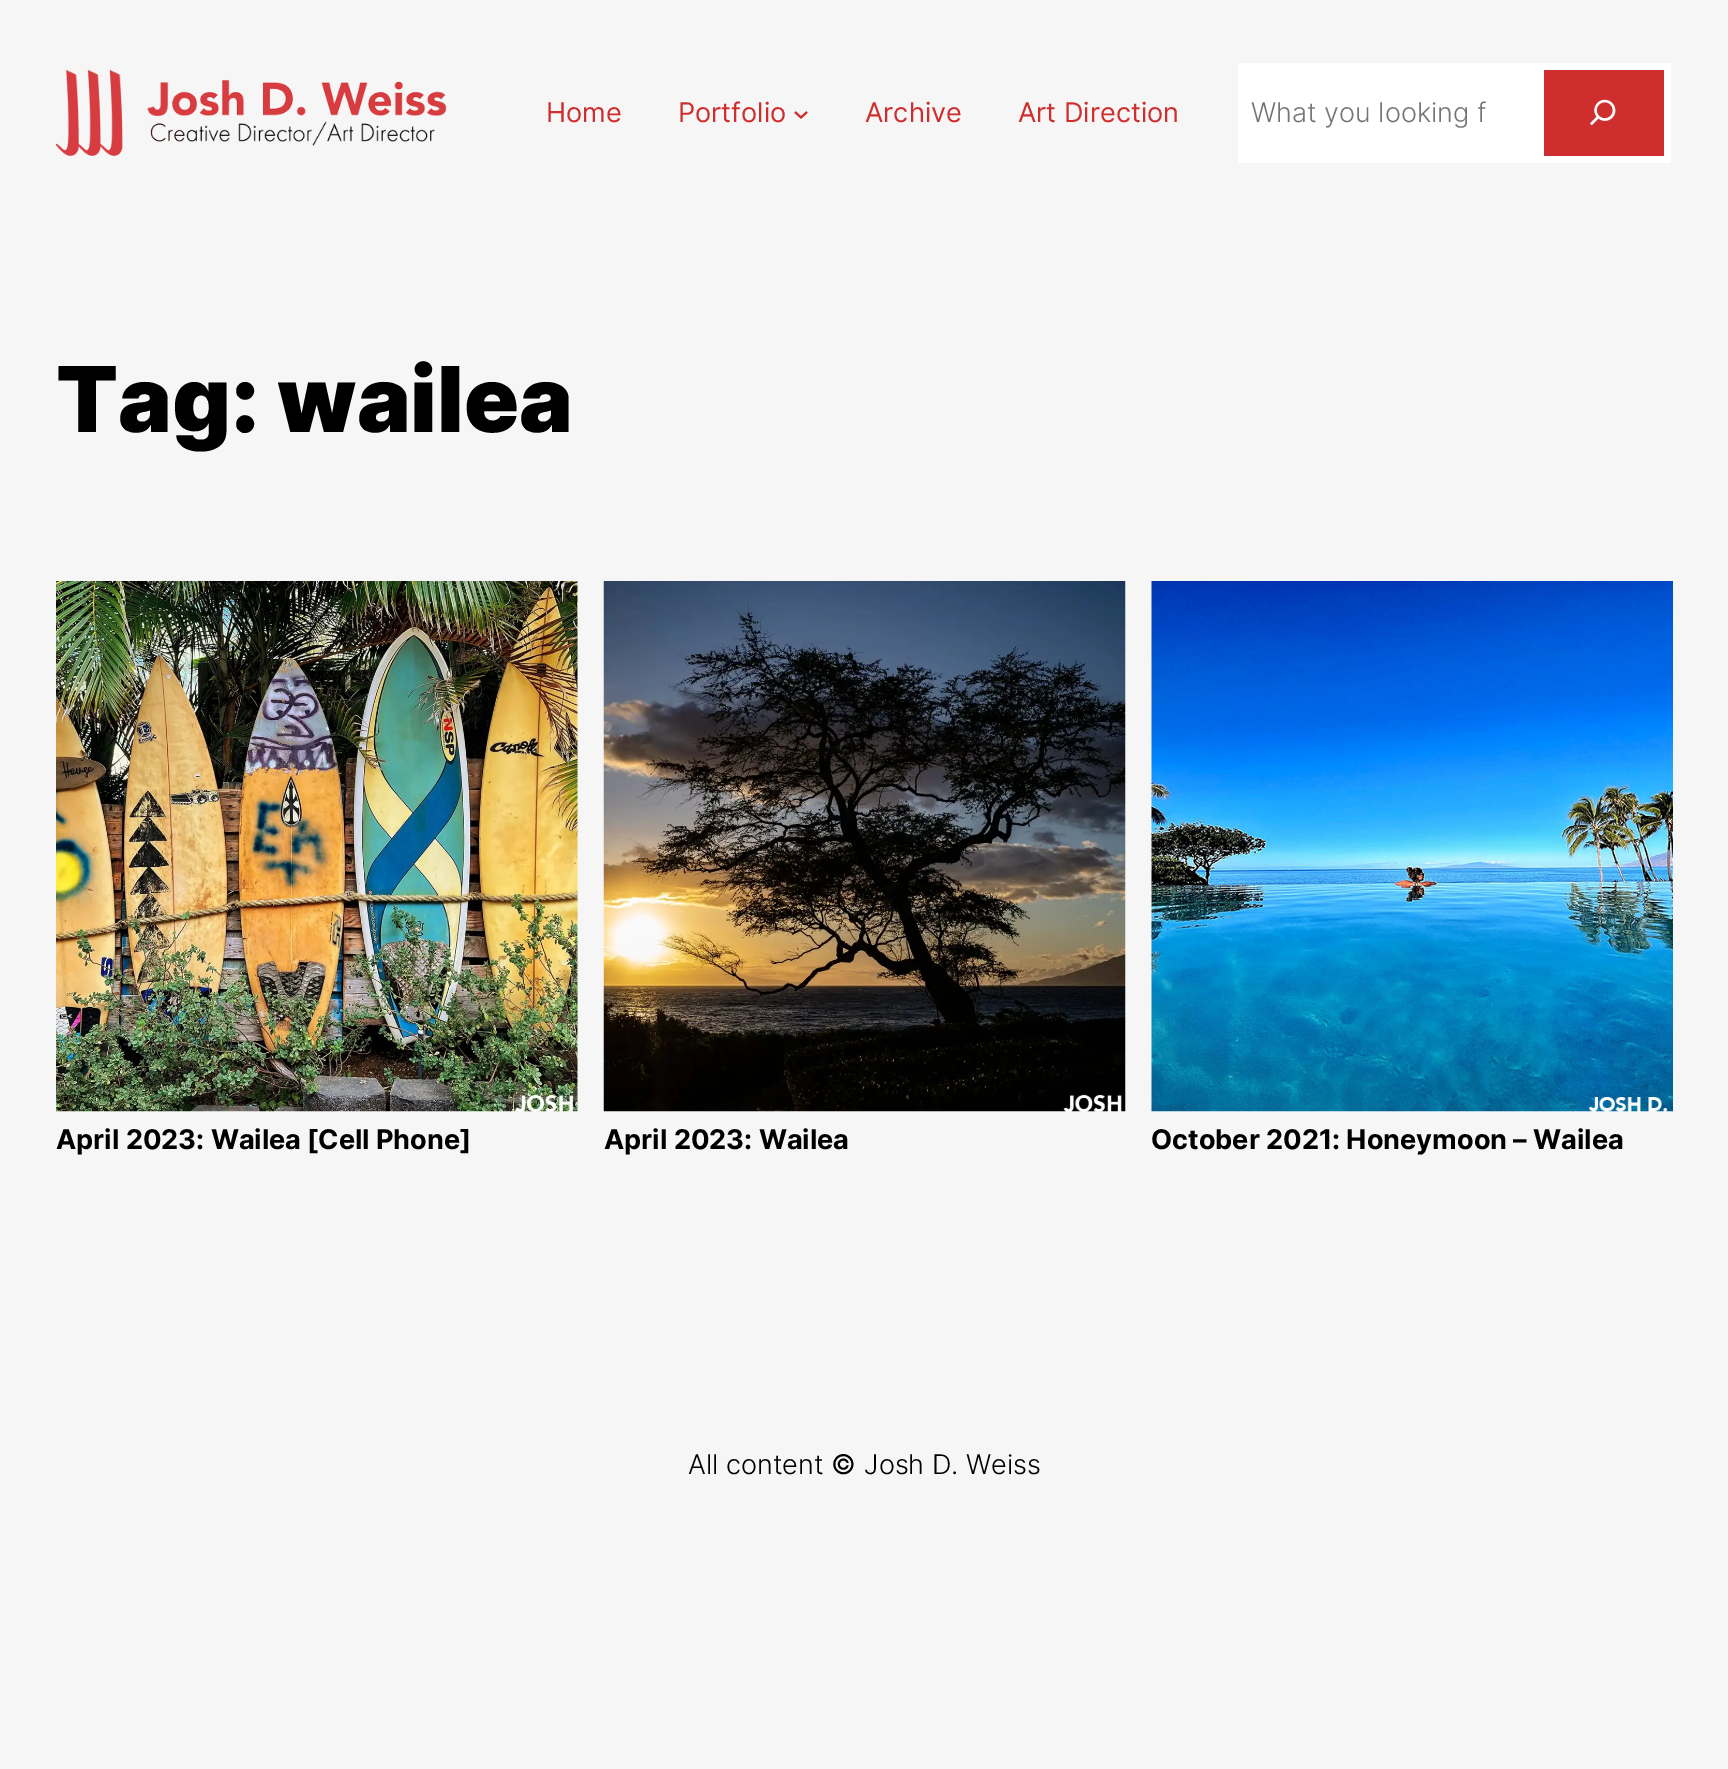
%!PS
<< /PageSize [1728 1769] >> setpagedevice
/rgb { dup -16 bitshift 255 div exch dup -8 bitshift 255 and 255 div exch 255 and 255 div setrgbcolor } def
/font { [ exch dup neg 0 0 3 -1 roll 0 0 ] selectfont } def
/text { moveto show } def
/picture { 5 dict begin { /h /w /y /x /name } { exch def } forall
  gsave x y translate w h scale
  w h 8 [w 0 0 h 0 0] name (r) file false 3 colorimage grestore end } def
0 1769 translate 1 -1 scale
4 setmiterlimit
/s1 { /Inter-Regular 27.1 font 16#CF2E2E rgb } def
/s2 { /Inter-Light 27.1 font 16#757575 rgb } def
/s3 { /Inter-Black 90.75 font 16#000000 rgb } def
/s4 { /Inter-Bold 27.1 font 16#000000 rgb } def
/s5 { /Inter-Light 27.1 font 16#000000 rgb } def
/s6 { /Inter-Regular 27.1 font 16#000000 rgb } def
16#F6F6F6 rgb
0 0 1728 1769 rectfill
(pic1.raw) 56 70 391 86 picture
s1
(Home) 546 122 text
(Portfolio) 678 122 text
2 setlinewidth
795 112 moveto 801 117.5 lineto 807 112 lineto stroke
(Archive) 865 122 text
(Art Direction) 1018 122 text
16#FFFFFF rgb
1238 63 433 100 rectfill
s2
(What you looking f) 1251 122 text
16#CF2E2E rgb
1544 70 120 86 rectfill
(pic2.raw) 1590 99 26 27 picture
s3
(Tag: wailea) 56 432 text
(pic3.raw) 56 581 522 531 picture
s4
(April 2023: Wailea [Cell Phone]) 56 1149 text
(pic4.raw) 603 581 523 531 picture
(April 2023: Wailea) 604 1149 text
(pic5.raw) 1151 581 522 531 picture
(October 2021: Honeymoon – Wailea) 1151 1149 text
s5
(All content) 688 1474 text
s6
(©) 831 1474 text
s5
(Josh D. Weiss) 864 1474 text
showpage
